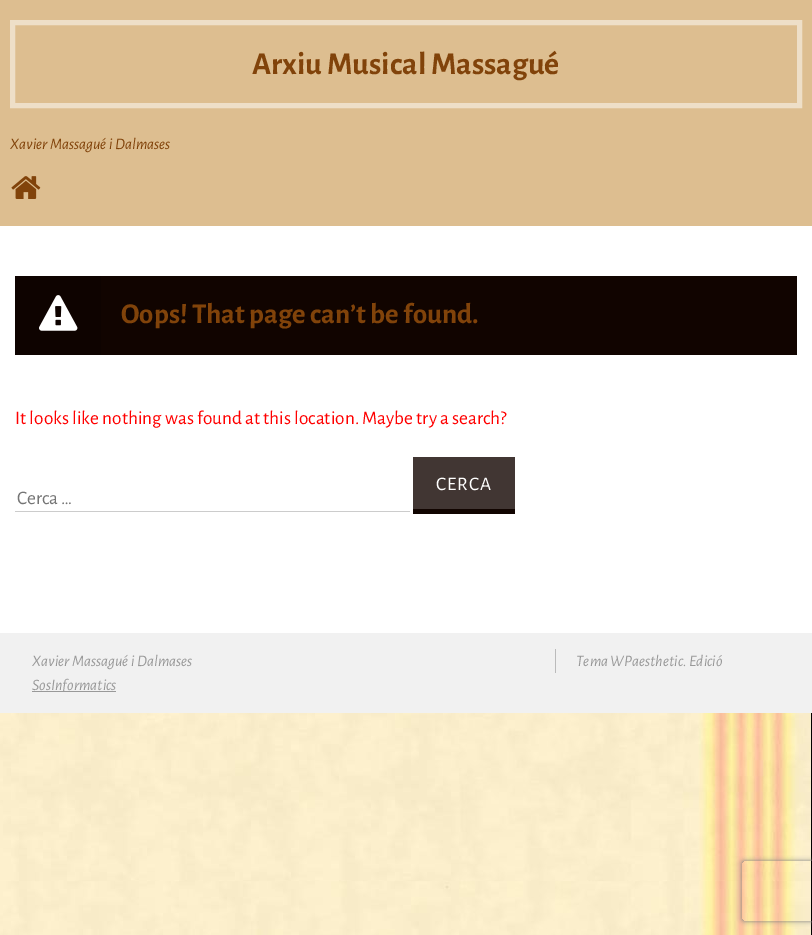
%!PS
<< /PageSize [812 935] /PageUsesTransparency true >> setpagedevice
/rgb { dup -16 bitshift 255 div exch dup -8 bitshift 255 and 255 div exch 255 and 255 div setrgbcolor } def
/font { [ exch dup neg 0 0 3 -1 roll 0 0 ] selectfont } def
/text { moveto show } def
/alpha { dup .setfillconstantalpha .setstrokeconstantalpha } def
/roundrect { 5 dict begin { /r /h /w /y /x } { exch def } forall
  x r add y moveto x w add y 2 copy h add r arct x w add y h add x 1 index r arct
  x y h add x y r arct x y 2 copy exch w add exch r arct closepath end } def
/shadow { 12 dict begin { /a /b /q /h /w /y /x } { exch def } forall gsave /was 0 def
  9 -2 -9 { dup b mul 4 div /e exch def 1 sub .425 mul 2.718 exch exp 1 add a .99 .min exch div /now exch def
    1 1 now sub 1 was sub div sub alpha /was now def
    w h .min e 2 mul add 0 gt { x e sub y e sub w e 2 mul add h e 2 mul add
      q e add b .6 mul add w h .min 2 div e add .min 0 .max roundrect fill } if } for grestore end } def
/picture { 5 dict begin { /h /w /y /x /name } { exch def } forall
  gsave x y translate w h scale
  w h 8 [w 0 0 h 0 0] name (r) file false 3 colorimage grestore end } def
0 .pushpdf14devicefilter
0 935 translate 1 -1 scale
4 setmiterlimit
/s1 { /AlegreyaSans-Bold 32 font 16#81430A rgb } def
/s2 { /AlegreyaSans-Italic 16 font 16#81430A rgb } def
/s3 { /AlegreyaSans-Bold 28.75 font 16#81430A rgb } def
/s4 { /AlegreyaSans-Regular 19.2 font 16#FF0000 rgb } def
/s5 { /AlegreyaSans-Regular 19.2 font 16#757575 rgb } def
/s6 { /AlegreyaSans-Italic 16 font 16#999999 rgb } def
16#FFFFFF rgb
0 0 812 935 rectfill
(pic1.raw) 0 713 812 222 picture
16#DDBE90 rgb
0 0 812 226 rectfill
16#EEDFC8 rgb
5 setlinewidth
12.5 22.5 787 83 rectstroke
s1
(Arxiu Musical Massagué) 252 74 text
s2
(Xavier Massagué i Dalmases) 10 149 text
(pic2.raw) 11 176 30 23 picture
16#110400 rgb
101 276 696 79 rectfill
16#0E0300 rgb
15 276 86 79 rectfill
(pic3.raw) 39 295 39 36 picture
s3
(Oops! That page can’t be found.) 121 323 text
s4
(It looks like nothing was found at this location. Maybe try a search?) 15 424 text
16#110400 rgb
413 509 102 5 rectfill
16#413633 rgb
413 457 102 52 rectfill
16#FFFFFF rgb
436 490 moveto 1 0 (CERCA) ashow
16#CCCCCC rgb
15 511 395 1 rectfill
s5
(Cerca …) 17 504 text
16#F1F1F1 rgb
0 633 812 80 rectfill
16#BBBBBB rgb
555 649 1 24 rectfill
s6
(Xavier Massagué i Dalmases) 32 666 text
(Tema WPaesthetic. Edició) 576 666 text
32 691 84 1 rectfill
(SosInformatics) 32 690 text
gsave
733 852 moveto 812 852 lineto 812 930 lineto 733 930 lineto closepath 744 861 moveto 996 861 lineto 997 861 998 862 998 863 curveto 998 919 lineto 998 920 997 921 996 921 curveto 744 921 lineto 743 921 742 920 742 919 curveto 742 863 lineto 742 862 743 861 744 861 curveto closepath eoclip newpath
16#808080 rgb
742 861 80 60 2 2.5 1 shadow
grestore
.poppdf14devicefilter showpage
